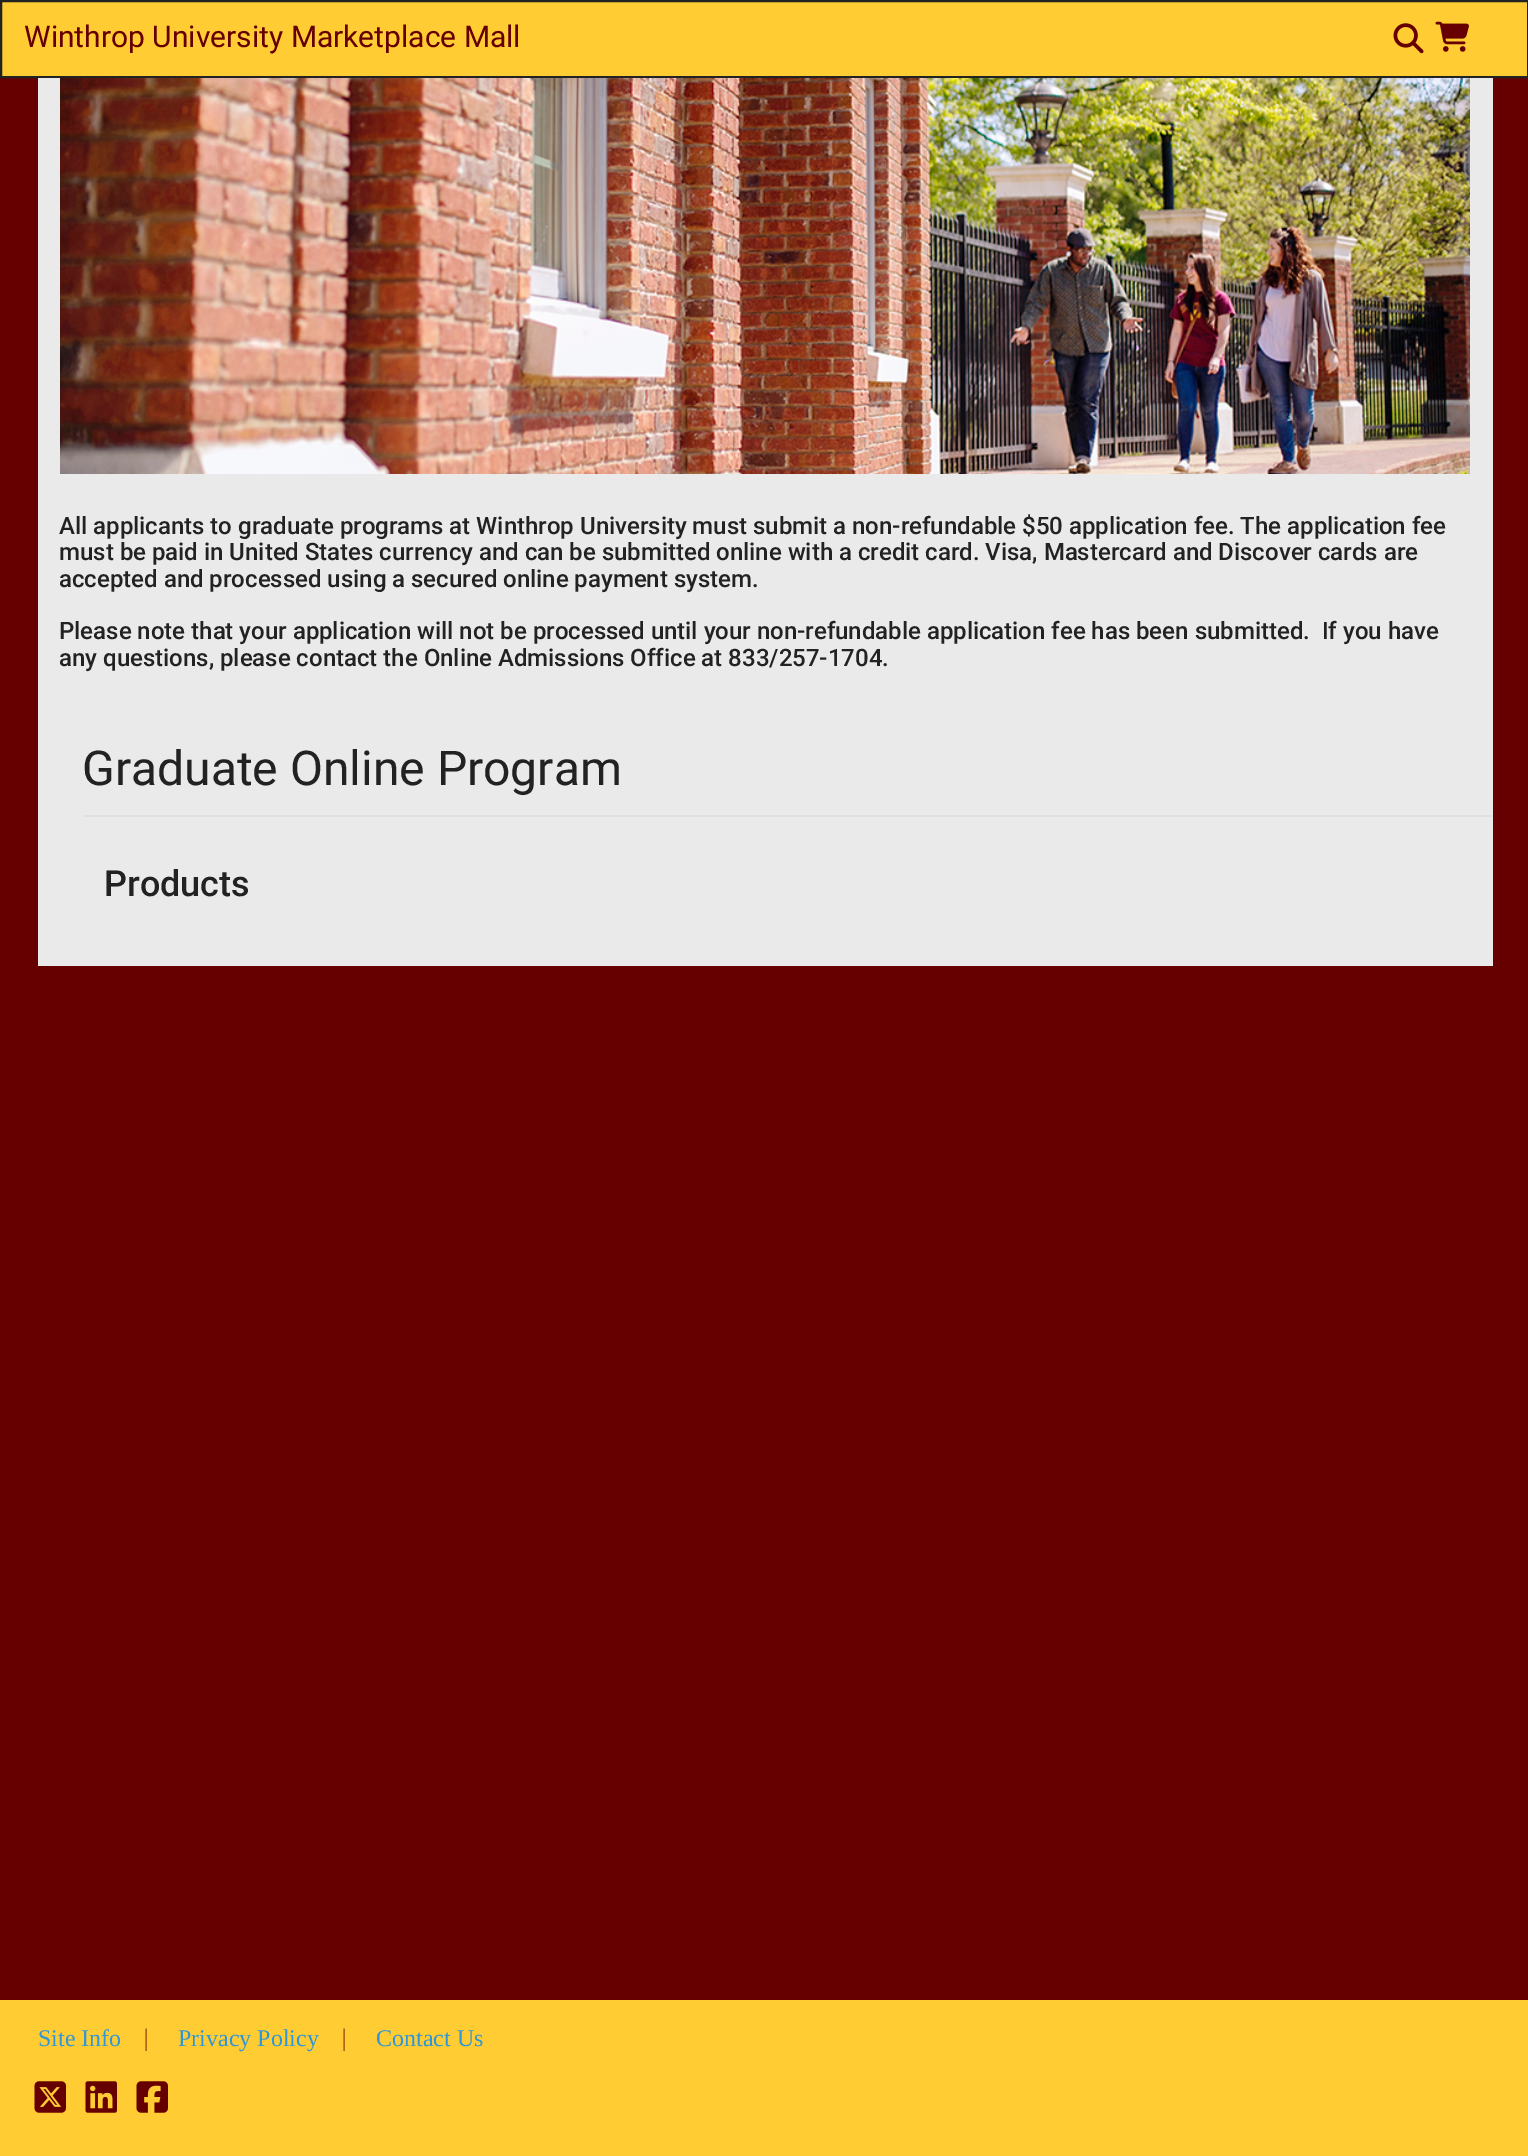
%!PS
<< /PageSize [1528 2156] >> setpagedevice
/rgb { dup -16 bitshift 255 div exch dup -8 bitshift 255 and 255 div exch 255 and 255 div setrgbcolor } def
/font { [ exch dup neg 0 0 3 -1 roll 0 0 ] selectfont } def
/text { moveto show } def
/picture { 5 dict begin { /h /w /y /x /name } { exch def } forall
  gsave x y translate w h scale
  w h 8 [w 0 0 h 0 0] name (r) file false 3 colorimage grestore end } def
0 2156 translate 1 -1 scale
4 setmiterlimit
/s1 { /Roboto-Regular 30 font 16#660000 rgb } def
/s2 { /Roboto-Medium 24 font 16#222222 rgb } def
/s3 { /Roboto-Regular 48 font 16#222222 rgb } def
/s4 { /Roboto-Medium 36 font 16#222222 rgb } def
/s5 { /LiberationSerif-Regular 24 font 16#2F97D7 rgb } def
/s6 { /LiberationSans-Regular 24 font 16#B3661A rgb } def
16#660000 rgb
0 0 1528 2156 rectfill
16#FFCC33 rgb
1 1 moveto 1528 1 lineto 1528 77 lineto 1 77 lineto closepath gsave fill grestore
16#222222 rgb
2 setlinewidth
stroke
s1
(Winthrop University Marketplace Mall) 24 47 text
(pic1.raw) 1393 23 31 31 picture
(pic2.raw) 1435 21 34 31 picture
16#EAEAEA rgb
38 78 1455 888 rectfill
(pic3.raw) 60 78 1410 396 picture
s2
(All applicants to graduate programs at Winthrop University must submit a non-refundable $50 application fee. The application fee) 59 534 text
(must be paid in United States currency and can be submitted online with a credit card. Visa, Mastercard and Discover cards are) 59 560 text
(accepted and processed using a secured online payment system.) 59 587 text
(Please note that your application will not be processed until your non-refundable application fee has been submitted.  If you have) 59 639 text
(any questions, please contact the Online Admissions Office at 833/257-1704.) 59 666 text
16#DEE2E6 rgb
83 815 1410 2 rectfill
s3
(Graduate Online Program) 82 785 text
s4
(Products) 104 896 text
16#FFCC33 rgb
0 2000 1528 156 rectfill
s5
(Site Info) 38 2046 text
s6
(|) 143 2046 text
s5
(Privacy Policy) 178 2046 text
s6
(|) 341 2046 text
s5
(Contact Us) 376 2046 text
(pic4.raw) 34 2081 32 32 picture
(pic5.raw) 85 2081 32 32 picture
(pic6.raw) 136 2081 32 32 picture
showpage
